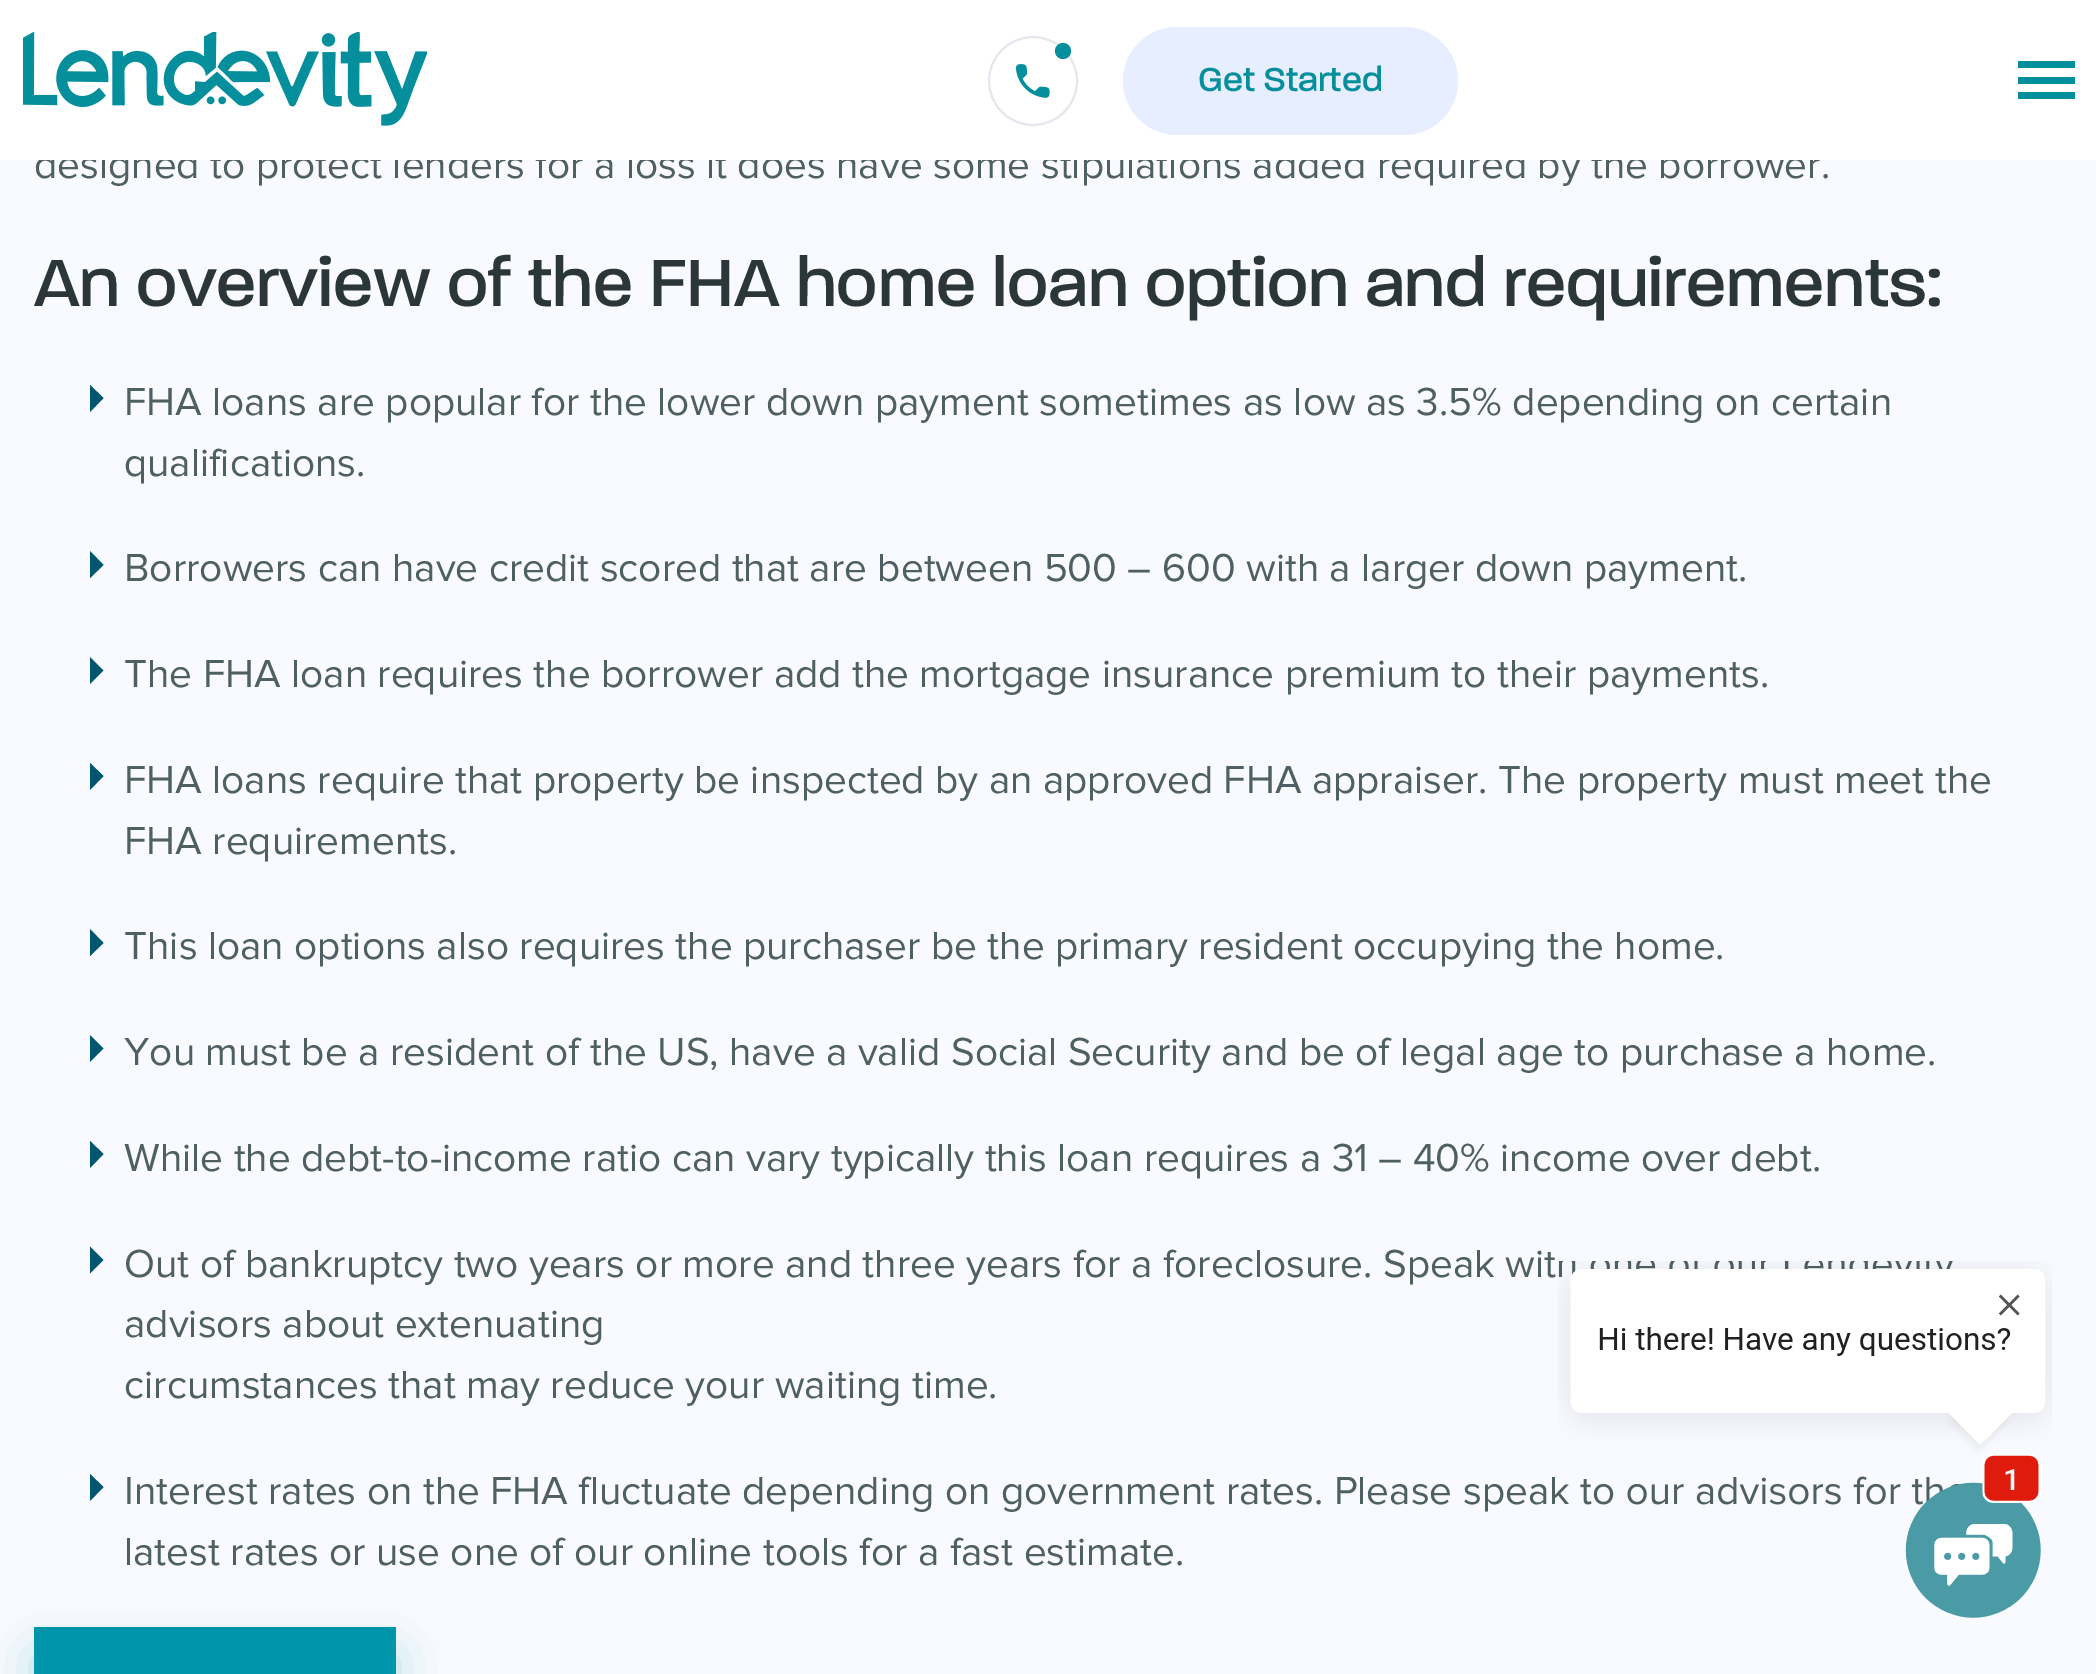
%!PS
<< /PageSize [2096 1674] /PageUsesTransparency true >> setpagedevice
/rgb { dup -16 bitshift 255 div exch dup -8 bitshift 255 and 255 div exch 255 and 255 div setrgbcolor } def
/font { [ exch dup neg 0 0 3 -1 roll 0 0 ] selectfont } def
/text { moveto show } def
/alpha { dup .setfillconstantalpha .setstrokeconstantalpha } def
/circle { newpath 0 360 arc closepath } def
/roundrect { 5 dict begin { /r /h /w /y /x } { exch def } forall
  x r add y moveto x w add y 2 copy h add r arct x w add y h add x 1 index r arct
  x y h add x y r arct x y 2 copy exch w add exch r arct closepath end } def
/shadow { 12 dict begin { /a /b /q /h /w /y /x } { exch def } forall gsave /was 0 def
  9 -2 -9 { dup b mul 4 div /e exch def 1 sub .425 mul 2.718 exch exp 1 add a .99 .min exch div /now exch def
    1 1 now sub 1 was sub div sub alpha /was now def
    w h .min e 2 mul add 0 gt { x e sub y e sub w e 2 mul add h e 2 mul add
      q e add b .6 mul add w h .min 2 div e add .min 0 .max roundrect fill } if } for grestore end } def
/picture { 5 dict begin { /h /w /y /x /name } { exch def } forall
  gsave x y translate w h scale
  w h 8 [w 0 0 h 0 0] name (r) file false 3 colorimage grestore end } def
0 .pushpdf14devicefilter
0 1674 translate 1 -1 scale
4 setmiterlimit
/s1 { /ProximaNova-Regular 40.5 font 16#4F6064 rgb } def
/s2 { /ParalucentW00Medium-Medium 36 font 16#058E9B rgb } def
/s3 { /ParalucentW00Medium-Medium 72 font 16#2B3639 rgb } def
16#F9FAFF rgb
0 0 2096 1674 rectfill
s1
(designed to protect lenders for a loss it does have some stipulations added required by the borrower.) 34 178 text
16#FFFFFF rgb
0 0 2096 160 rectfill
(pic1.raw) 23 32 404 94 picture
16#E5E6EE rgb
2 setlinewidth
1033 81 44 circle stroke
16#058E9B rgb
1063 51 8 circle fill
(pic2.raw) 1015 64 35 34 picture
16#E6EEFF rgb
1123 27 335 108 54 roundrect fill
s2
(Get Started) 1198 91 text
2018 61 57 7 rectfill
2018 77 57 7 rectfill
2018 92 57 7 rectfill
s3
(An overview of the FHA home loan option and requirements:) 34 306 text
16#00556F rgb
90 412 moveto 90 385 lineto 103.5 398 lineto closepath fill
s1
(FHA loans are popular for the lower down payment sometimes as low as 3.5% depending on certain) 124 415 text
(qualifications.) 124 476 text
16#00556F rgb
90 578 moveto 90 551 lineto 103.5 565 lineto closepath fill
s1
(Borrowers can have credit scored that are between 500 – 600 with a larger down payment.) 124 581 text
16#00556F rgb
90 684 moveto 90 657 lineto 103.5 670.5 lineto closepath fill
s1
(The FHA loan requires the borrower add the mortgage insurance premium to their payments.) 124 687 text
16#00556F rgb
90 790 moveto 90 763 lineto 103.5 776 lineto closepath fill
s1
(FHA loans require that property be inspected by an approved FHA appraiser. The property must meet the) 124 793 text
(FHA requirements.) 124 854 text
16#00556F rgb
90 956 moveto 90 929 lineto 103.5 943 lineto closepath fill
s1
(This loan options also requires the purchaser be the primary resident occupying the home.) 124 959 text
16#00556F rgb
90 1062 moveto 90 1035 lineto 103.5 1048.5 lineto closepath fill
s1
(You must be a resident of the US, have a valid Social Security and be of legal age to purchase a home.) 124 1065 text
16#00556F rgb
90 1168 moveto 90 1141 lineto 103.5 1154 lineto closepath fill
s1
(While the debt-to-income ratio can vary typically this loan requires a 31 – 40% income over debt.) 124 1171 text
16#00556F rgb
90 1273.5 moveto 90 1246.5 lineto 103.5 1260 lineto closepath fill
s1
(Out of bankruptcy two years or more and three years for a foreclosure. Speak wit) 124 1277 text
(advisors about extenuating) 124 1337 text
(circumstances that may reduce your waiting time.) 124 1398 text
16#00556F rgb
90 1501 moveto 90 1474 lineto 103.5 1487 lineto closepath fill
s1
(Interest rates on the FHA fluctuate depending on government rates. Please speak to our advisors for th) 124 1504 text
(latest rates or use one of our online tools for a fast estimate.) 124 1565 text
16#9FD0D7 rgb
34 1654 362 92 0 24 0.75 shadow
16#0095AA rgb
34 1627 362 47 rectfill
(pic3.raw) 1558 1261 494 357 picture
.poppdf14devicefilter showpage
